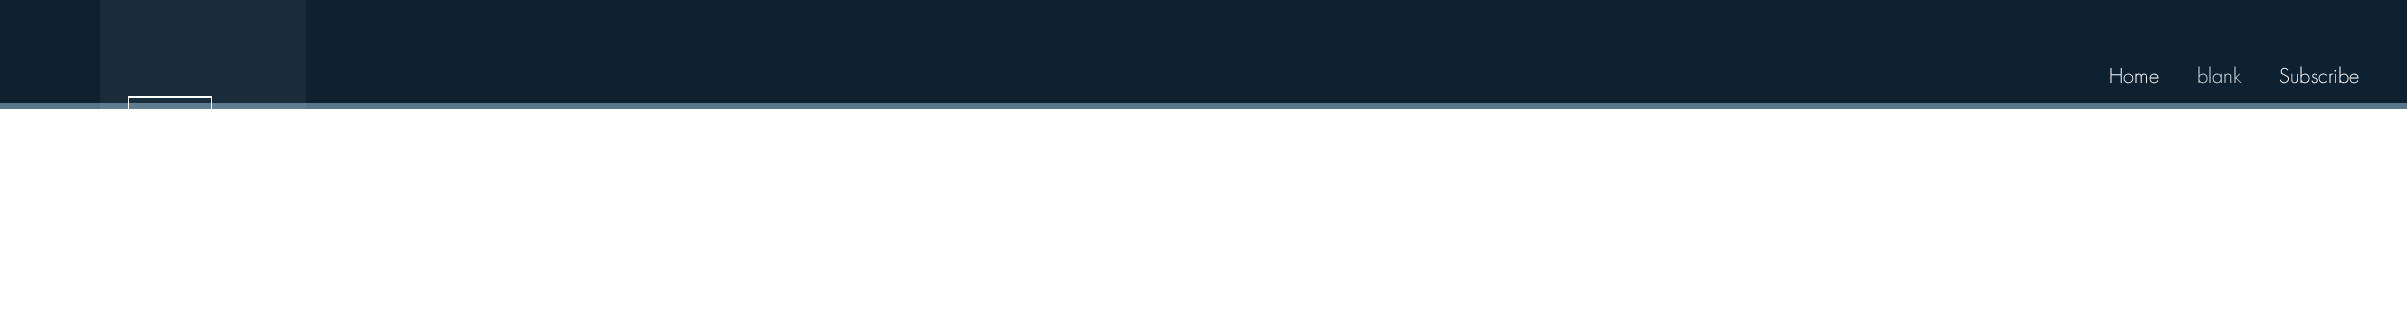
%!PS
<< /PageSize [2407 327] >> setpagedevice
/rgb { dup -16 bitshift 255 div exch dup -8 bitshift 255 and 255 div exch 255 and 255 div setrgbcolor } def
/font { [ exch dup neg 0 0 3 -1 roll 0 0 ] selectfont } def
/text { moveto show } def
0 327 translate 1 -1 scale
4 setmiterlimit
/s1 { /futura-Light 20 font 16#FFFFFF rgb } def
/s2 { /futura-Light 20 font 16#D1D9DC rgb } def
16#0D2130 rgb
0 0 2407 327 rectfill
16#192C3A rgb
100 0 206 103 rectfill
16#58758C rgb
0 103 2407 6 rectfill
16#607C92 rgb
100 103 206 6 rectfill
s1
(Home) 2109 83 text
s2
(blank) 2197 83 text
s1
(Subscribe) 2279 83 text
0 109 2407 218 rectfill
211 118 moveto 211 98 lineto 129 98 lineto 129 180 lineto 211 180 lineto 211 159 lineto 212 159 lineto 212 181 lineto 128 181 lineto 128 96 lineto 212 96 lineto 212 118 lineto closepath fill
showpage
